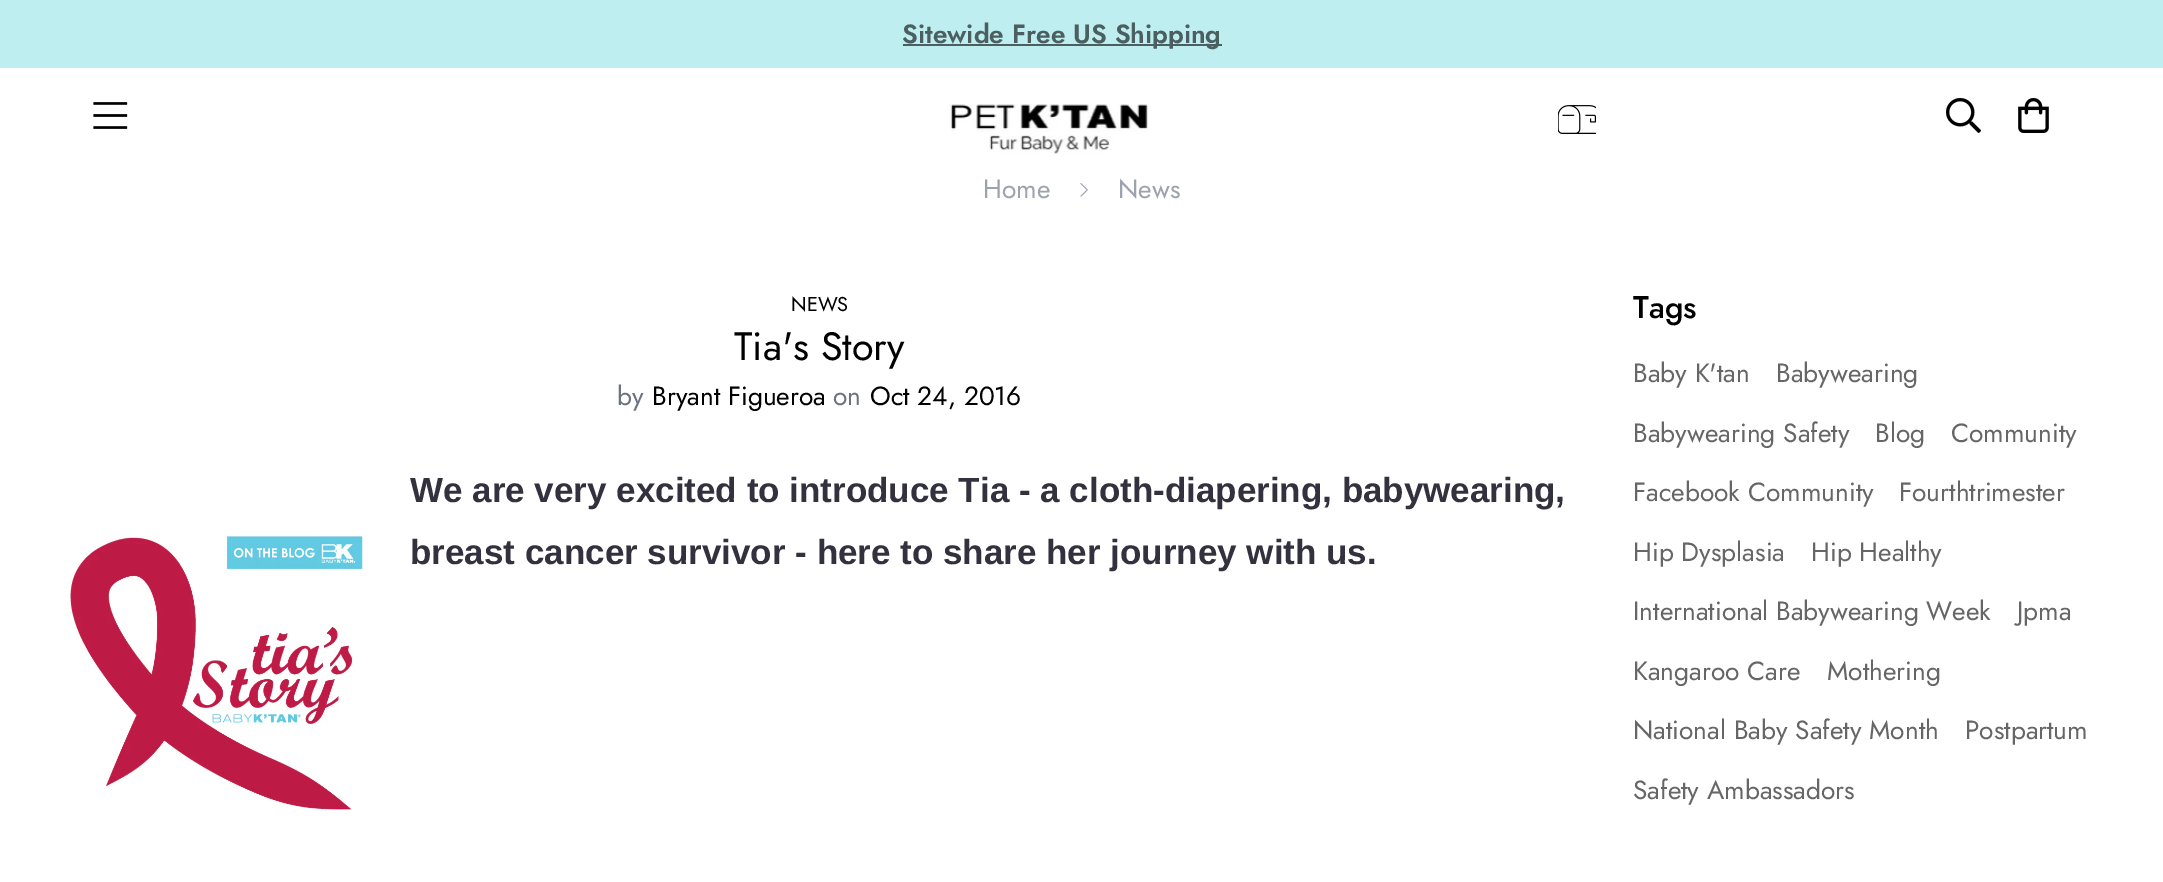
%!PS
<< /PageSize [2163 882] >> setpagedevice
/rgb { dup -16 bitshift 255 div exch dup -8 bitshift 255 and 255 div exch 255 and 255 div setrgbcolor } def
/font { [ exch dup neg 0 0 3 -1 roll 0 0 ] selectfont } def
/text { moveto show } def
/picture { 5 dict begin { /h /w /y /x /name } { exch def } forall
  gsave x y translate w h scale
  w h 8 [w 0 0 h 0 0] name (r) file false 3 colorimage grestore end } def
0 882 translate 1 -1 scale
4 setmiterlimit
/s1 { /Jost-SemiBold 26.25 font 16#4C5F60 rgb } def
/s2 { /Jost-Regular 26.25 font 16#9CA3AF rgb } def
/s3 { /Jost-Regular 20 font 16#000000 rgb } def
/s4 { /Jost-Regular 39.5 font 16#000000 rgb } def
/s5 { /Jost-Regular 26.25 font 16#6B7280 rgb } def
/s6 { /Jost-Regular 26.25 font 16#000000 rgb } def
/s7 { /LiberationSans-Bold 35 font 16#34313F rgb } def
/s8 { /Jost-Medium 31.5 font 16#000000 rgb } def
/s9 { /Jost-Regular 26.25 font 16#666666 rgb } def
16#FFFFFF rgb
0 0 2163 882 rectfill
16#BFEEF1 rgb
0 0 2163 68 rectfill
16#4C5F60 rgb
903 44 319 2 rectfill
s1
(Sitewide Free US Shipping) 902 43 text
(pic1.raw) 93 102 35 27 picture
(pic2.raw) 948 104 201 50 picture
(pic3.raw) 1558 105 38 29 picture
(pic4.raw) 1946 98 35 35 picture
(pic5.raw) 2018 98 31 35 picture
s2
(Home) 983 198 text
(pic6.raw) 1080 183 8 14 picture
(News) 1118 198 text
s3
(NEWS) 791 311 text
s4
(Tia's Story) 734 360 text
s5
(by) 617 405 text
s6
(Bryant Figueroa) 652 405 text
s5
(on) 833 405 text
s6
(Oct 24, 2016) 870 405 text
s7
(We are very excited to introduce Tia - a cloth-diapering, babywearing,) 410 502 text
(breast cancer survivor - here to share her journey with us.) 410 564 text
(pic7.raw) 70 535 293 276 picture
s8
(Tags) 1633 318 text
s9
(Baby K'tan) 1633 382 text
(Babywearing) 1776 382 text
(Babywearing Safety) 1633 442 text
(Blog) 1875 442 text
(Community) 1951 442 text
(Facebook Community) 1633 501 text
(Fourthtrimester) 1899 501 text
(Hip Dysplasia) 1633 561 text
(Hip Healthy) 1811 561 text
(International Babywearing Week) 1633 620 text
(Jpma) 2017 620 text
(Kangaroo Care) 1633 680 text
(Mothering) 1827 680 text
(National Baby Safety Month) 1633 739 text
(Postpartum) 1965 739 text
(Safety Ambassadors) 1633 799 text
showpage
